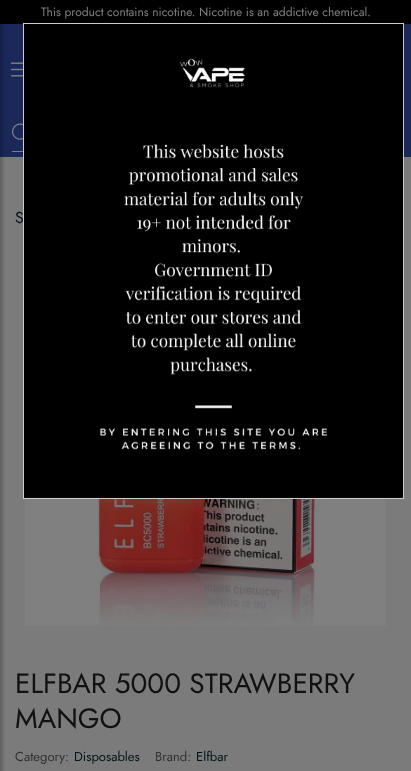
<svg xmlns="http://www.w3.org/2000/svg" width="411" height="771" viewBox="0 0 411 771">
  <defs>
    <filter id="blur1" x="-50%" y="-200%" width="200%" height="500%"><feGaussianBlur stdDeviation="1.5"/></filter>
  </defs>
  <rect width="100%" height="100%" fill="#7b7b7b"/>
  <rect x="0" y="24" width="411" height="133" fill="#1a285a"/>
  <rect x="0" y="0" width="411" height="24" fill="#000000"/>
  <rect x="-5" y="3" width="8" height="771" fill="#000000" fill-opacity="0.2" filter="url(#blur1)"/>
  <image x="11" y="62" width="12" height="15" href="img1.png"/>
  <image x="12" y="123" width="11" height="17" href="img2.png"/>
  <rect x="12" y="151" width="11" height="1" fill="#808080"/>
  <text x="41" y="16" font-family="Jost" font-size="12" fill="#808080">This product contains nicotine. Nicotine is an addictive chemical.</text>
  <text x="15" y="223" font-family="Jost" font-size="16" fill="#021217">S</text>
  <image x="25" y="497" width="361" height="129" href="img4.png"/>
  <rect x="23.5" y="23.5" width="380" height="475" fill="none" stroke="#cccccc"/>
  <image x="24" y="24" width="379" height="474" href="img3.png"/>
  <text x="15" y="693" font-family="Jost" font-size="28" fill="#111111">ELFBAR 5000 STRAWBERRY</text>
  <text x="15" y="728" font-family="Jost" font-size="28" fill="#111111">MANGO</text>
  <text x="15" y="761" font-family="Jost" font-size="13" fill="#313131">Category:</text>
  <text x="74" y="761" font-family="Jost" font-size="13" fill="#021217">Disposables</text>
  <text x="155" y="761" font-family="Jost" font-size="13" fill="#313131">Brand:</text>
  <text x="196" y="761" font-family="Jost" font-size="13" fill="#021217">Elfbar</text>
</svg>
